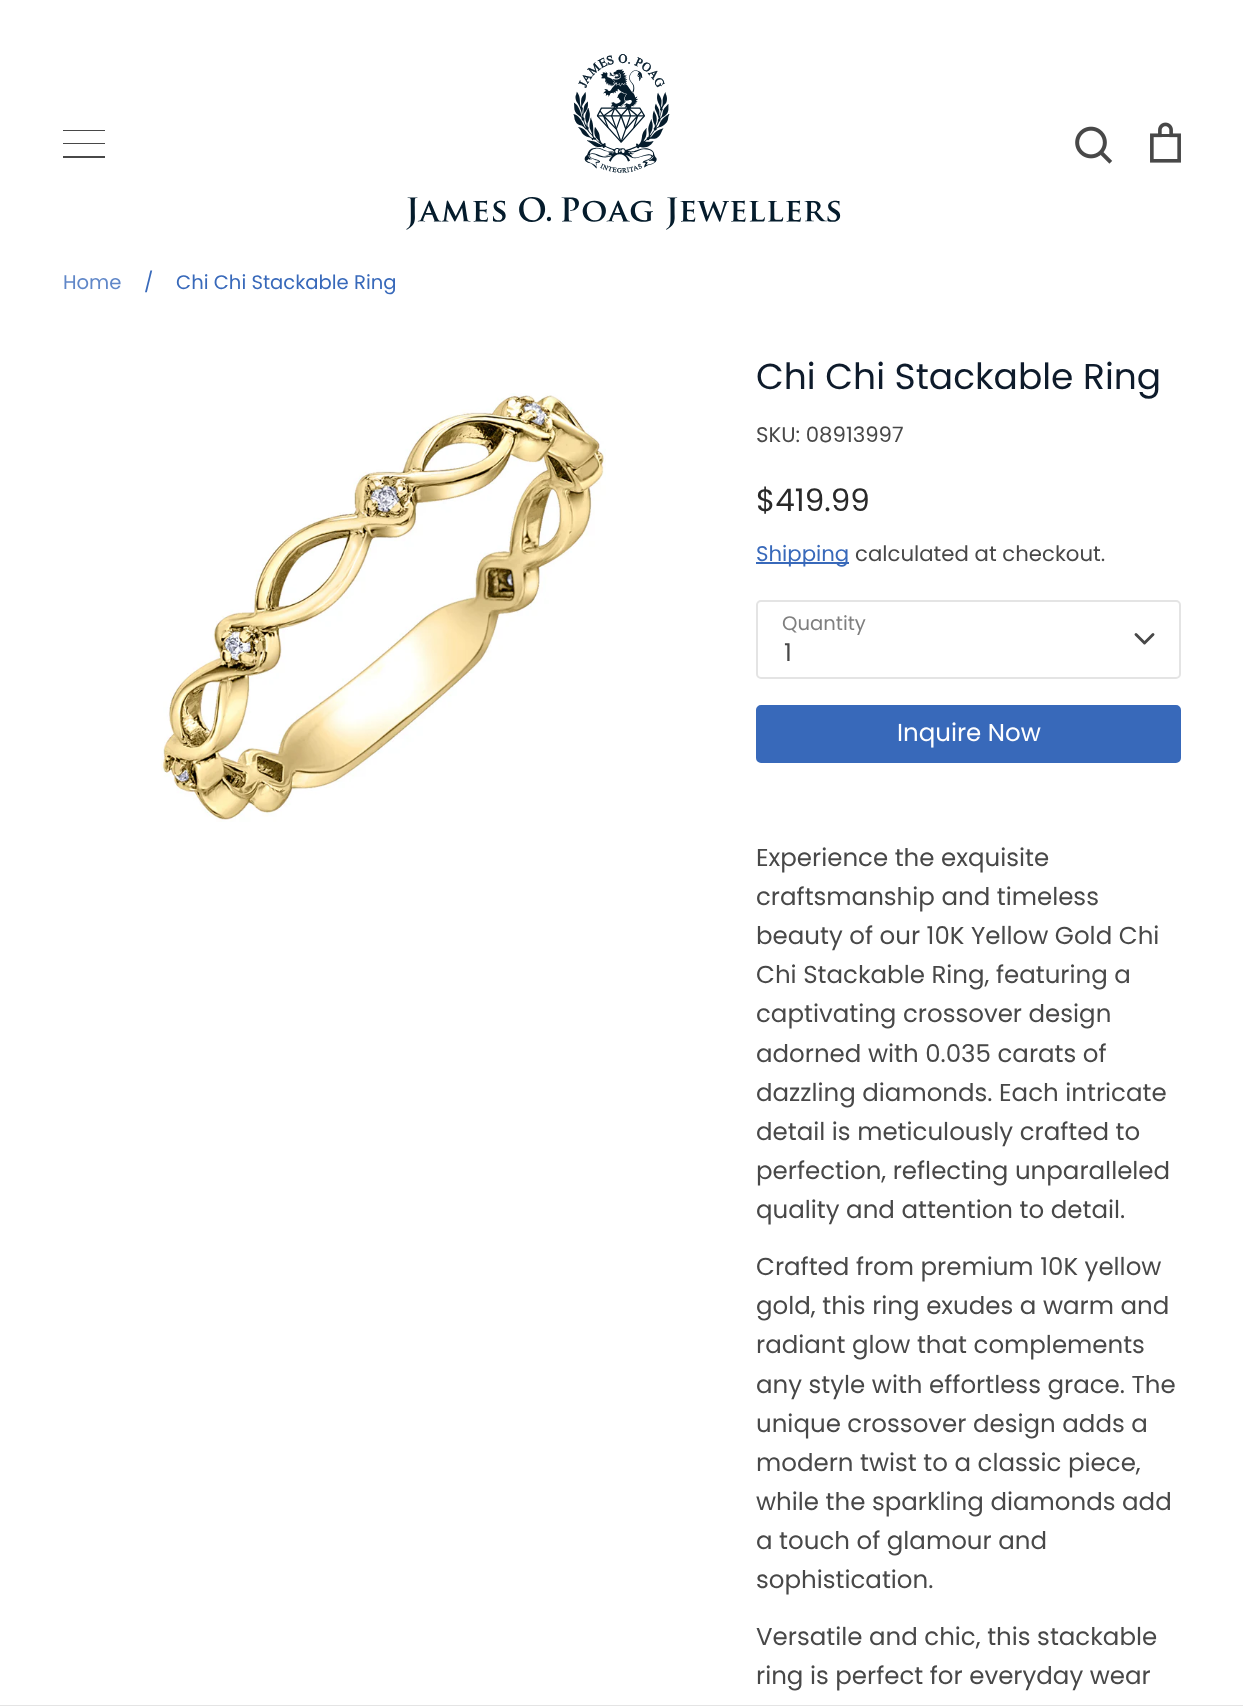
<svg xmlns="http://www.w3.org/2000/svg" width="1243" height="1706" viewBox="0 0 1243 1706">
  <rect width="100%" height="100%" fill="#ffffff"/>
  <rect x="63" y="130" width="42" height="1" fill="#484848"/>
  <rect x="63" y="143" width="42" height="1" fill="#484848"/>
  <rect x="63" y="156" width="42" height="2" fill="#484848"/>
  <image x="406" y="54" width="435" height="176" href="img1.png"/>
  <image x="1075" y="126" width="38" height="38" href="img2.png"/>
  <image x="1150" y="122" width="31" height="41" href="img3.png"/>
  <rect x="0" y="1705" width="1243" height="1" fill="#484848" fill-opacity="0.15"/>
  <text x="63" y="289" font-family="Poppins" font-size="19.6" fill="#6087c8">Home</text>
  <text x="144" y="289" font-family="Poppins" font-size="19.6" fill="#3869ba">/</text>
  <text x="176" y="289" font-family="Poppins" font-size="19.6" fill="#3869ba">Chi Chi Stackable Ring</text>
  <image x="161" y="393" width="445" height="429" href="img4.png"/>
  <text x="756" y="389" font-family="Poppins" font-size="36" fill="#0e1b2b">Chi Chi Stackable Ring</text>
  <text x="756" y="442" font-family="Poppins" font-size="21.25" fill="#484848">SKU: 08913997</text>
  <text x="756" y="511" font-family="Poppins" font-size="31" fill="#292929">$419.99</text>
  <rect x="756" y="562" width="93" height="2" fill="#3869ba"/>
  <text x="756" y="561" font-family="Poppins" font-size="21.25" fill="#3869ba">Shipping</text>
  <text x="855" y="561" font-family="Poppins" font-size="21.25" fill="#484848">calculated at checkout.</text>
  <text x="782" y="630" font-family="Poppins" font-size="19.6" fill="#7f7f7f">Quantity</text>
  <rect x="757" y="601" width="423" height="77" rx="4" fill="none" stroke="#e4e4e4" stroke-width="2"/>
  <path d="M1136 634.5L1144.5 643L1153 634.5" fill="none" stroke="#484848" stroke-width="2.9" stroke-linecap="round" stroke-linejoin="round"/>
  <text x="784" y="661" font-family="Poppins" font-size="24.5" fill="#484848">1</text>
  <rect x="757" y="706" width="423" height="56" rx="4" fill="#3869ba" stroke="#3869ba" stroke-width="2"/>
  <text x="897" y="741" font-family="Poppins" font-size="24.5" fill="#ffffff">Inquire Now</text>
  <text x="756" y="866" font-family="Poppins" font-size="24.5" fill="#484848">Experience the exquisite</text>
  <text x="756" y="905" font-family="Poppins" font-size="24.5" fill="#484848">craftsmanship and timeless</text>
  <text x="756" y="944" font-family="Poppins" font-size="24.5" fill="#484848">beauty of our 10K Yellow Gold Chi</text>
  <text x="756" y="983" font-family="Poppins" font-size="24.5" fill="#484848">Chi Stackable Ring, featuring a</text>
  <text x="756" y="1022" font-family="Poppins" font-size="24.5" fill="#484848">captivating crossover design</text>
  <text x="756" y="1062" font-family="Poppins" font-size="24.5" fill="#484848">adorned with 0.035 carats of</text>
  <text x="756" y="1101" font-family="Poppins" font-size="24.5" fill="#484848">dazzling diamonds. Each intricate</text>
  <text x="756" y="1140" font-family="Poppins" font-size="24.5" fill="#484848">detail is meticulously crafted to</text>
  <text x="756" y="1179" font-family="Poppins" font-size="24.5" fill="#484848">perfection, reflecting unparalleled</text>
  <text x="756" y="1218" font-family="Poppins" font-size="24.5" fill="#484848">quality and attention to detail.</text>
  <text x="756" y="1275" font-family="Poppins" font-size="24.5" fill="#484848">Crafted from premium 10K yellow</text>
  <text x="756" y="1314" font-family="Poppins" font-size="24.5" fill="#484848">gold, this ring exudes a warm and</text>
  <text x="756" y="1353" font-family="Poppins" font-size="24.5" fill="#484848">radiant glow that complements</text>
  <text x="756" y="1393" font-family="Poppins" font-size="24.5" fill="#484848">any style with effortless grace. The</text>
  <text x="756" y="1432" font-family="Poppins" font-size="24.5" fill="#484848">unique crossover design adds a</text>
  <text x="756" y="1471" font-family="Poppins" font-size="24.5" fill="#484848">modern twist to a classic piece,</text>
  <text x="756" y="1510" font-family="Poppins" font-size="24.5" fill="#484848">while the sparkling diamonds add</text>
  <text x="756" y="1549" font-family="Poppins" font-size="24.5" fill="#484848">a touch of glamour and</text>
  <text x="756" y="1588" font-family="Poppins" font-size="24.5" fill="#484848">sophistication.</text>
  <text x="756" y="1645" font-family="Poppins" font-size="24.5" fill="#484848">Versatile and chic, this stackable</text>
  <text x="756" y="1684" font-family="Poppins" font-size="24.5" fill="#484848">ring is perfect for everyday wear</text>
</svg>
